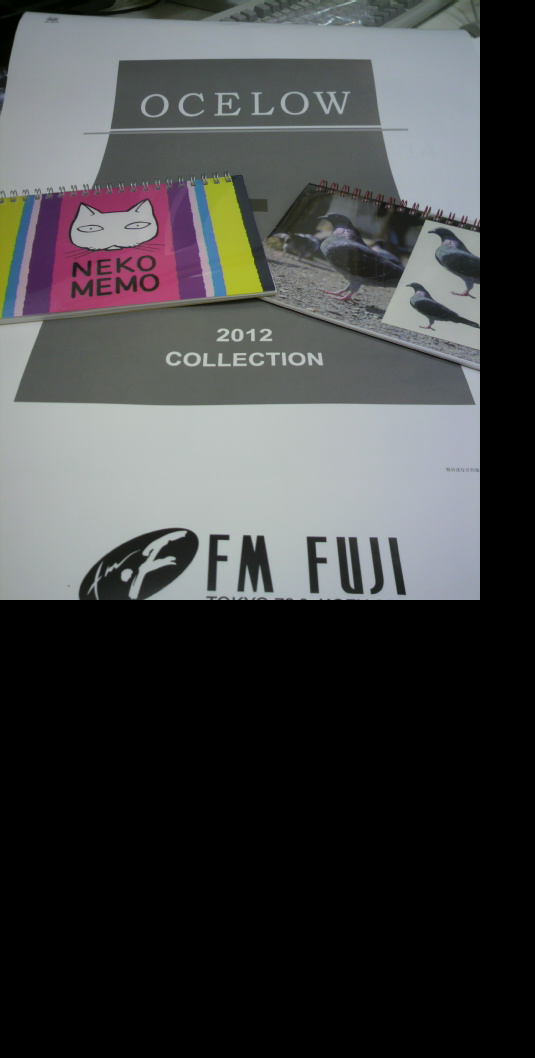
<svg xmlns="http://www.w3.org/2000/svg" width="535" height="1058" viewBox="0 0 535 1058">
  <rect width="100%" height="100%" fill="#000000"/>
  <image x="0" y="0" width="480" height="600" href="img1.png"/>
</svg>
